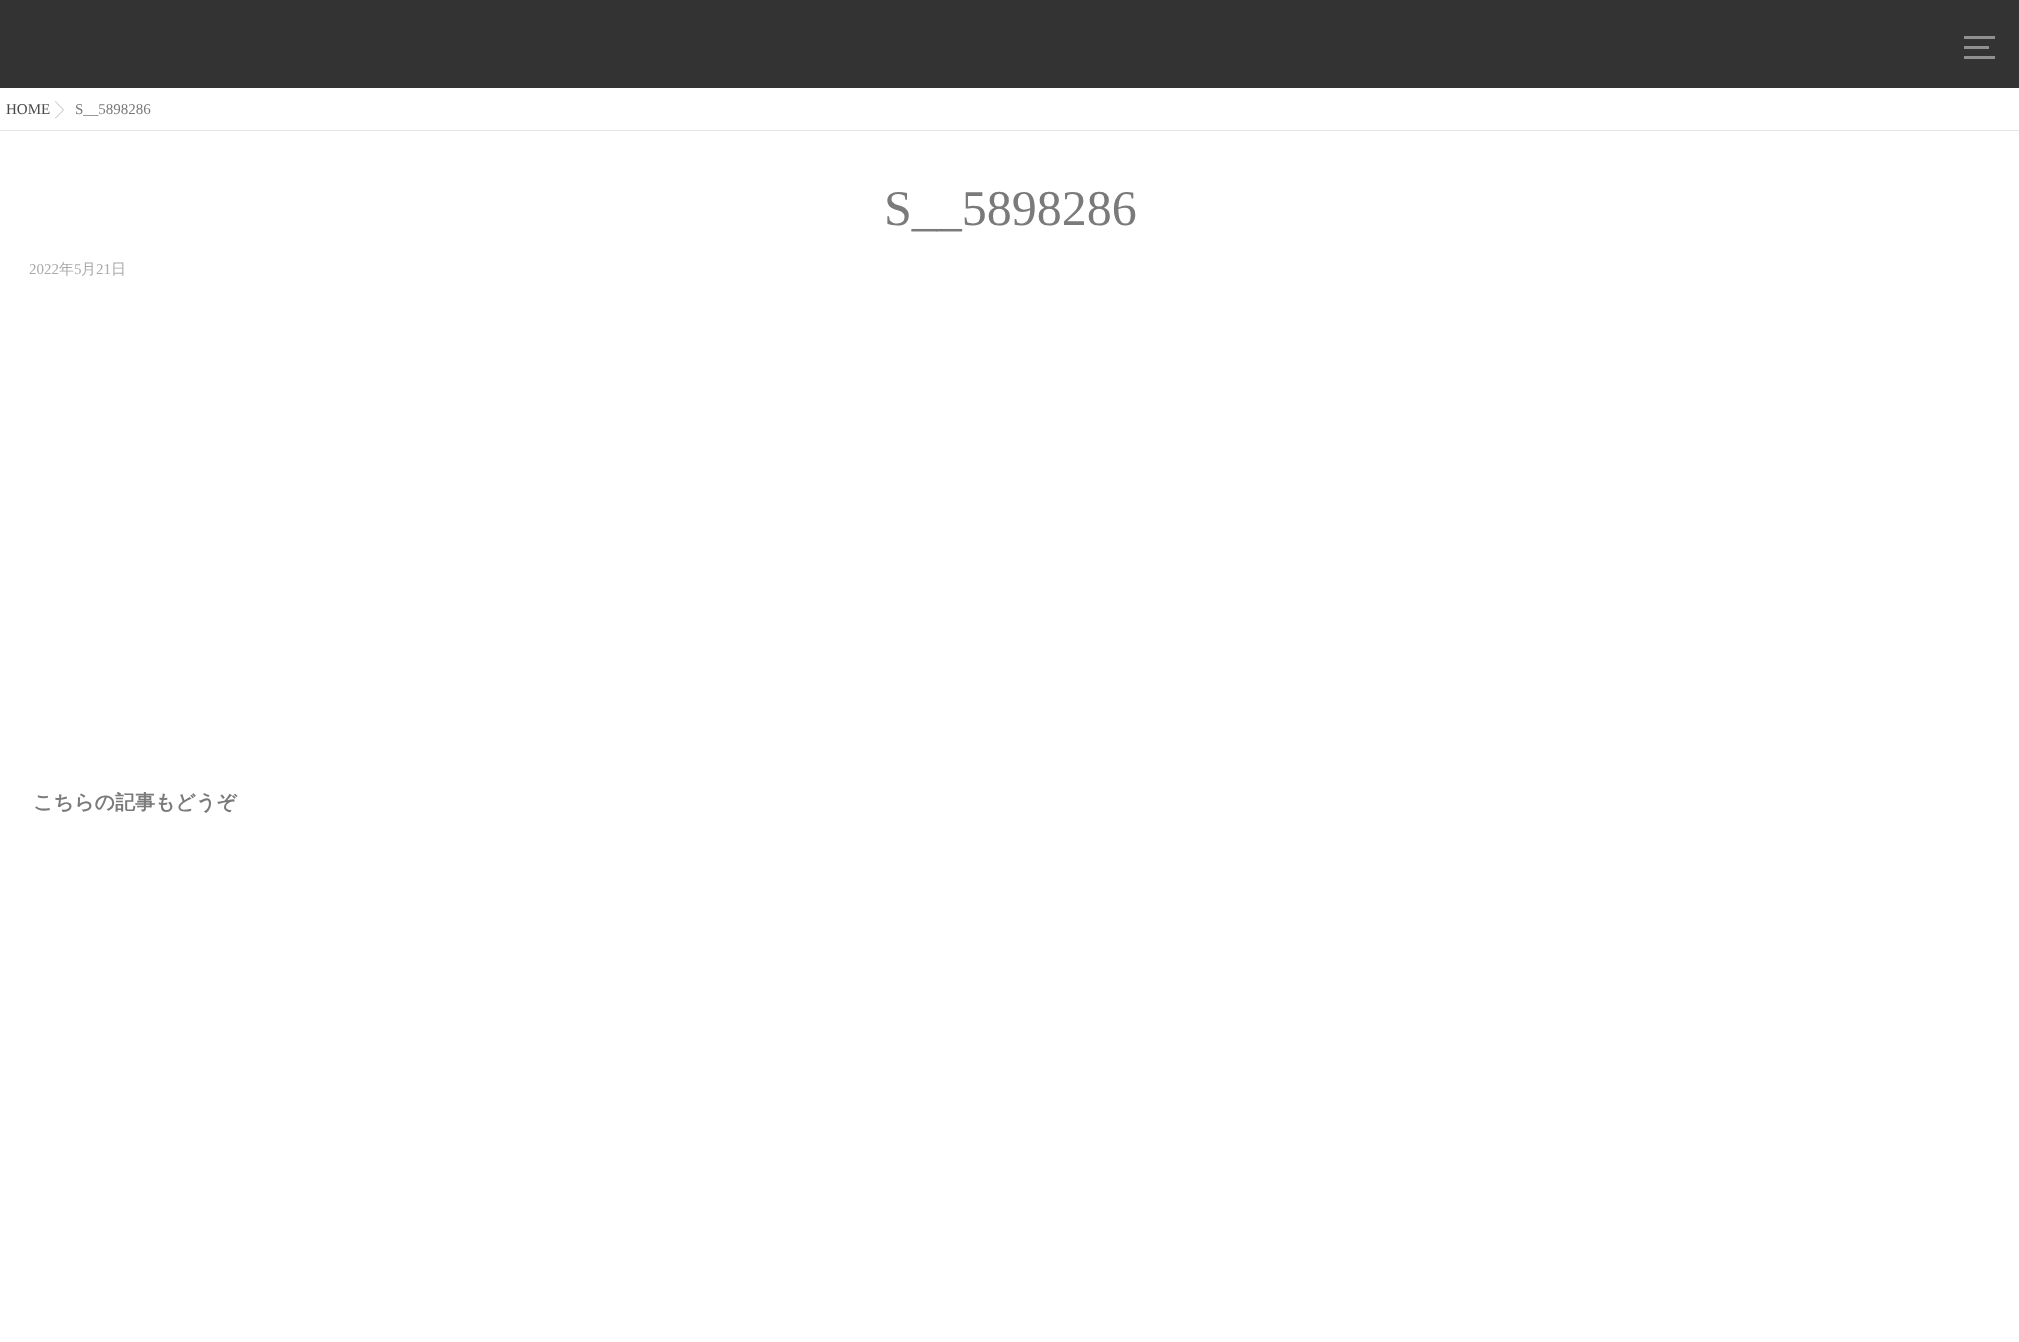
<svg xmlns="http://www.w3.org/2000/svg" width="2019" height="1342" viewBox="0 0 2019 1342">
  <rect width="100%" height="100%" fill="#ffffff"/>
  <rect x="0" y="0" width="2019" height="88" fill="#333333"/>
  <rect x="1964" y="36" width="31" height="3" fill="#909090"/>
  <rect x="1964" y="46" width="25" height="3" fill="#909090"/>
  <rect x="1964" y="56" width="31" height="3" fill="#909090"/>
  <rect x="0" y="130" width="2019" height="1" fill="#e5e5e5"/>
  <text x="6" y="114" font-family="Liberation Serif" font-size="15" fill="#474747">HOME</text>
  <path d="M55 101.5L63 110L55 118L55.5 118.5L64 110L55.5 101Z" fill="#bcbcbc"/>
  <text x="75" y="114" font-family="Liberation Serif" font-size="15" fill="#7a7a7a">S__5898286</text>
  <text x="884" y="225" font-family="Liberation Serif" font-size="50" fill="#7a7a7a">S__5898286</text>
  <text x="29" y="274" font-family="Liberation Serif" font-size="15" fill="#aaaaaa">2022</text>
  <text x="59" y="274" font-family="WenQuanYi Zen Hei" font-size="15" font-weight="500" fill="#aaaaaa">年</text>
  <text x="74" y="274" font-family="Liberation Serif" font-size="15" fill="#aaaaaa">5</text>
  <text x="81" y="274" font-family="WenQuanYi Zen Hei" font-size="15" font-weight="500" fill="#aaaaaa">月</text>
  <text x="96" y="274" font-family="Liberation Serif" font-size="15" fill="#aaaaaa">21</text>
  <text x="111" y="274" font-family="WenQuanYi Zen Hei" font-size="15" font-weight="500" fill="#aaaaaa">日</text>
  <text x="33" y="809" font-family="WenQuanYi Zen Hei" font-size="20" font-weight="bold" fill="#7a7a7a">こちらの記事もどうぞ</text>
</svg>
